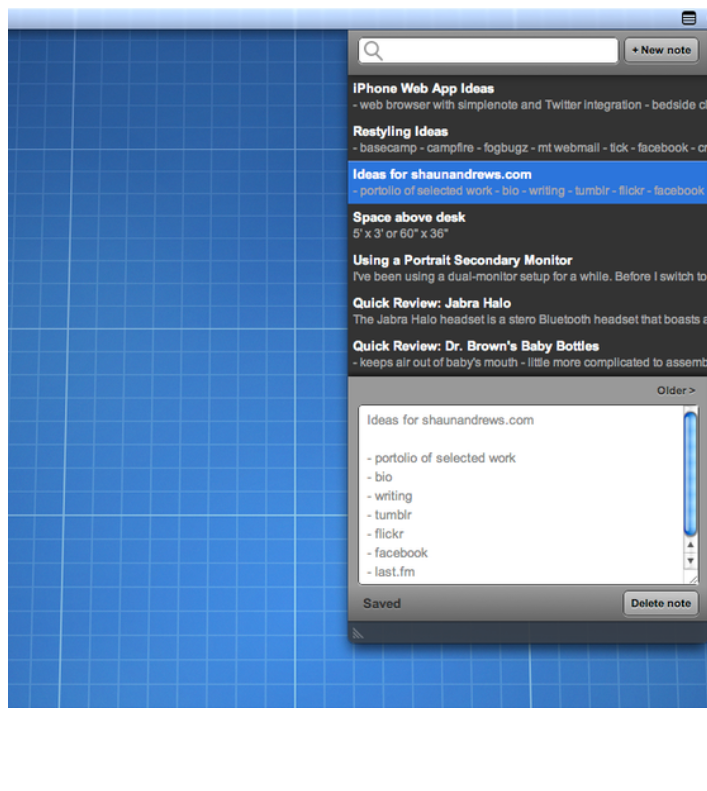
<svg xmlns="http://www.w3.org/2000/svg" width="707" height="791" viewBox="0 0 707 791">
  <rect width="100%" height="100%" fill="#ffffff"/>
  <image x="8" y="8" width="699" height="700" href="img1.png"/>
</svg>
